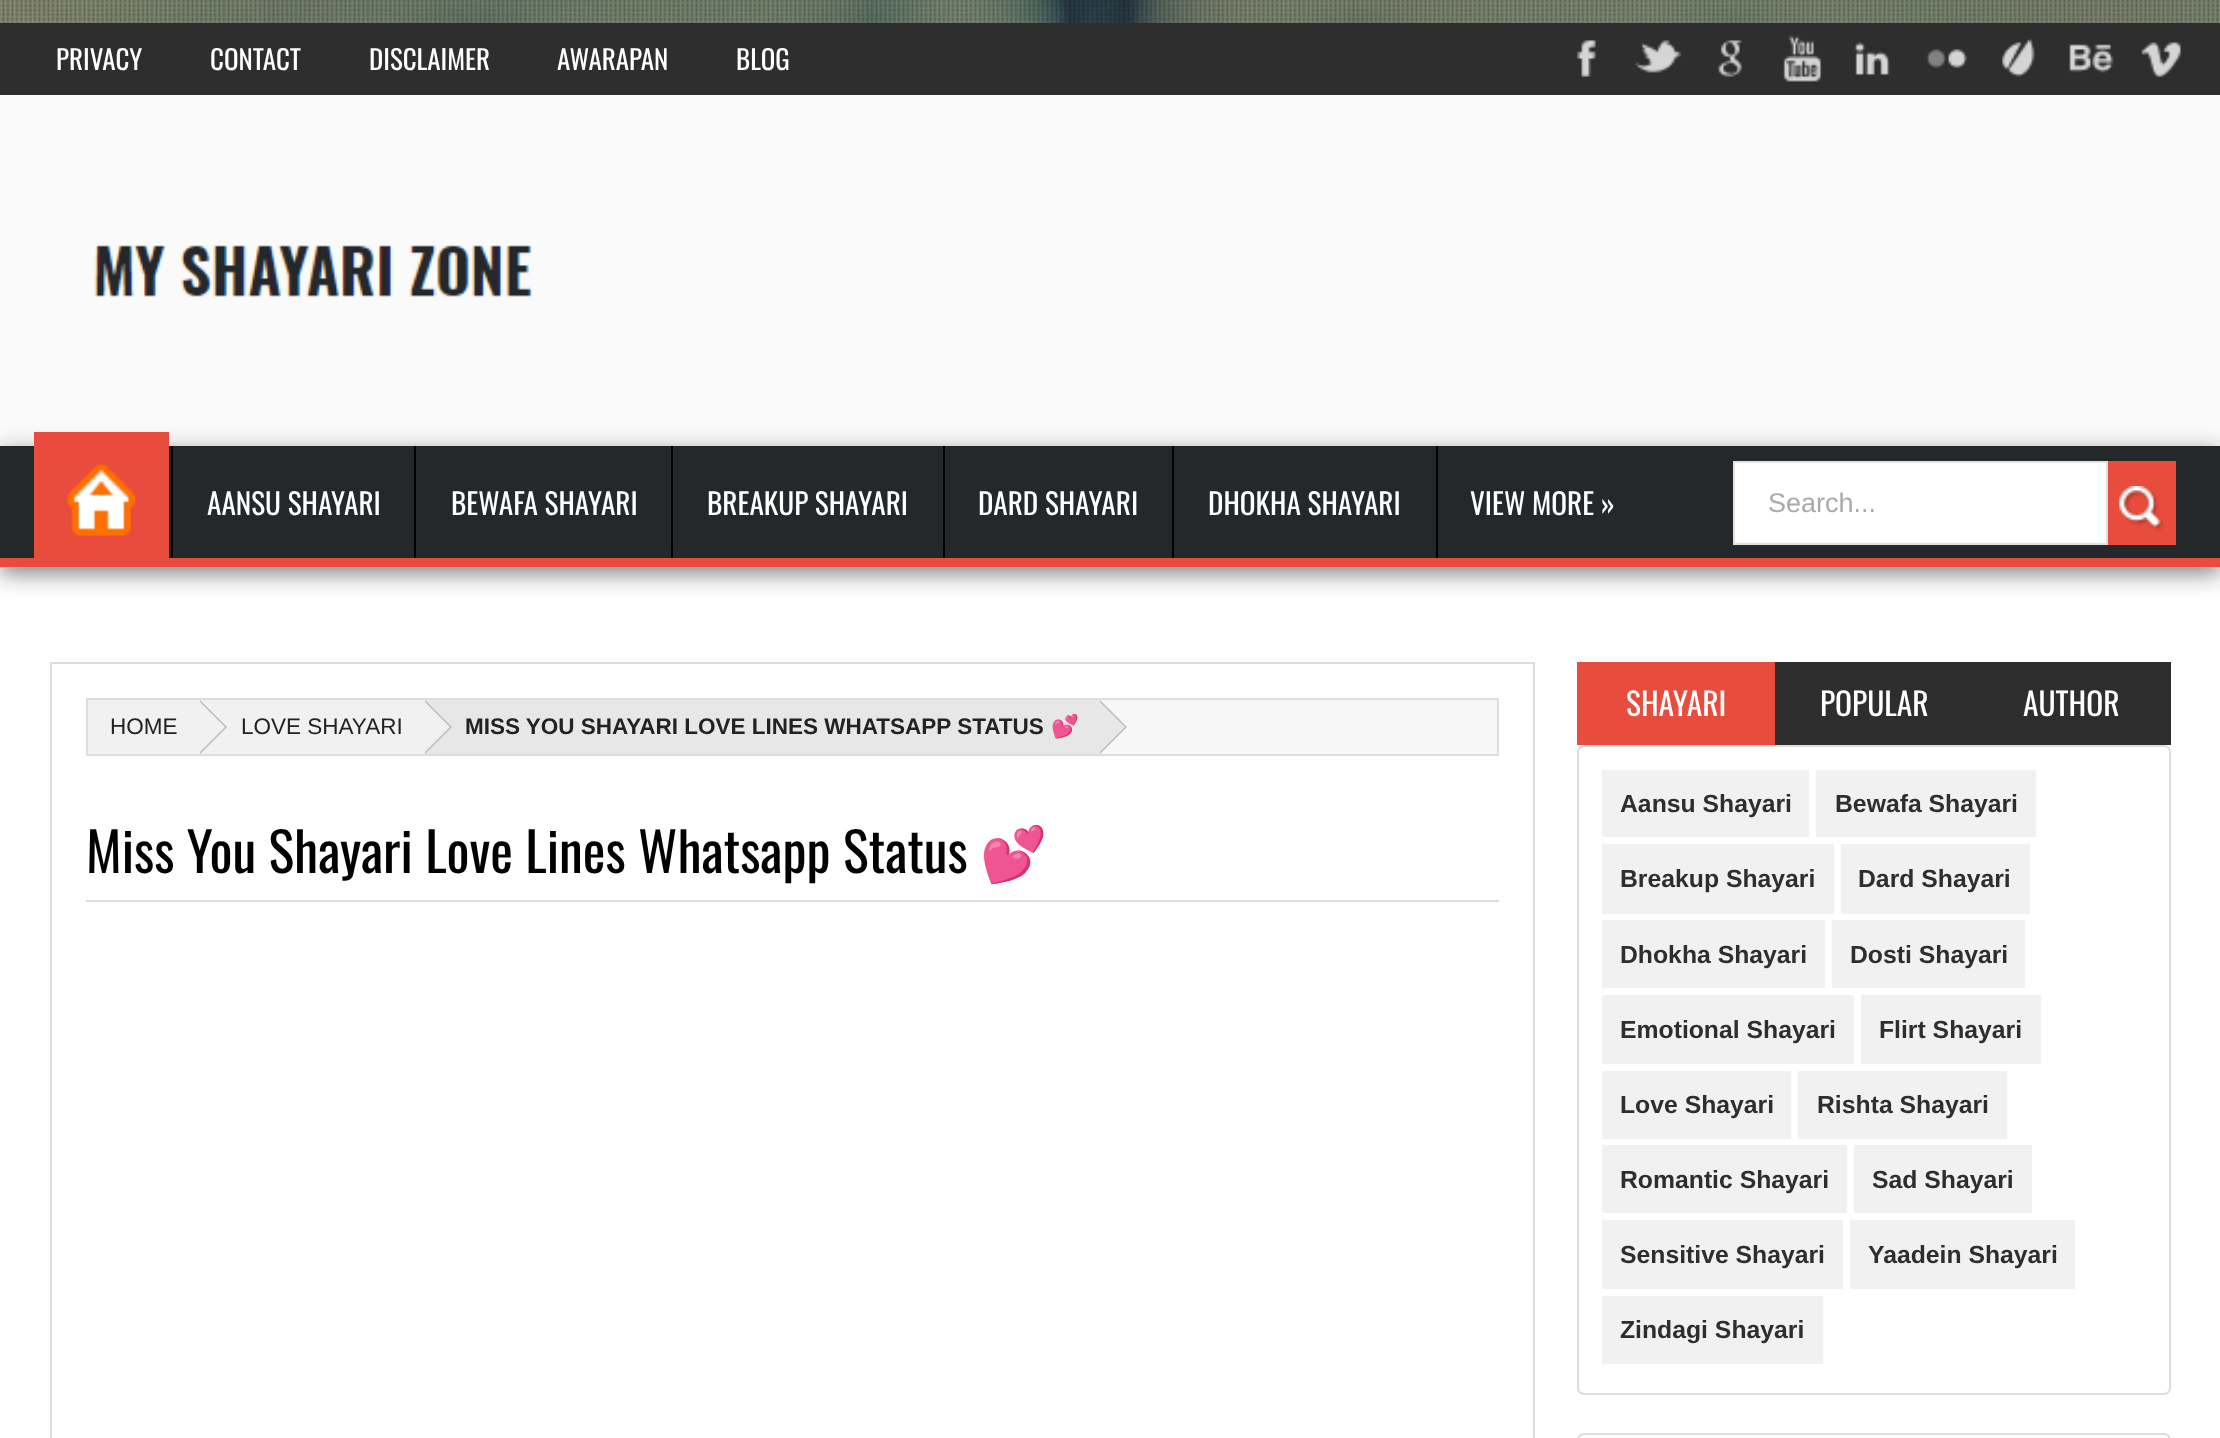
<svg xmlns="http://www.w3.org/2000/svg" width="2220" height="1438" viewBox="0 0 2220 1438">
  <defs>
    <filter id="blur1" x="-50%" y="-200%" width="200%" height="500%"><feGaussianBlur stdDeviation="11"/></filter>
  </defs>
  <rect width="100%" height="100%" fill="#ffffff"/>
  <image x="0" y="0" width="2220" height="23" href="img1.png"/>
  <image x="0" y="0" width="2219" height="23" href="img2.png"/>
  <rect x="0" y="95" width="2220" height="351" fill="#fafafa"/>
  <rect x="0" y="23" width="2220" height="72" fill="#2e2e2e"/>
  <text x="56" y="70" font-family="Oswald" font-size="27" fill="#ffffff">PRIVACY</text>
  <text x="210" y="70" font-family="Oswald" font-size="27" fill="#ffffff">CONTACT</text>
  <text x="369" y="70" font-family="Oswald" font-size="27" fill="#ffffff">DISCLAIMER</text>
  <text x="557" y="70" font-family="Oswald" font-size="27" fill="#ffffff">AWARAPAN</text>
  <text x="736" y="70" font-family="Oswald" font-size="27" fill="#ffffff">BLOG</text>
  <image x="1576" y="40" width="20" height="38" href="img3.png"/>
  <image x="1635" y="40" width="47" height="33" href="img4.png"/>
  <image x="1718" y="40" width="25" height="38" href="img5.png"/>
  <image x="1783" y="35" width="39" height="47" href="img6.png"/>
  <image x="1854" y="42" width="37" height="33" href="img7.png"/>
  <image x="1926" y="49" width="41" height="20" href="img8.png"/>
  <image x="2002" y="38" width="33" height="39" href="img9.png"/>
  <image x="2069" y="44" width="45" height="29" href="img10.png"/>
  <image x="2141" y="42" width="41" height="36" href="img11.png"/>
  <image x="94" y="245" width="439" height="52" href="img12.png"/>
  <rect x="0" y="452" width="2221" height="122" fill="#323232" fill-opacity="0.6" filter="url(#blur1)"/>
  <rect x="0" y="446" width="2220" height="112" fill="#25282a"/>
  <rect x="0" y="558" width="2220" height="9" fill="#e84c3d"/>
  <rect x="34" y="432" width="135" height="126" fill="#e84c3d"/>
  <image x="67" y="463" width="69" height="73" href="img13.png"/>
  <rect x="171" y="446" width="2" height="112" fill="#000000"/>
  <text x="207" y="515" font-family="Oswald" font-size="29.25" fill="#ffffff">AANSU SHAYARI</text>
  <rect x="414" y="446" width="2" height="112" fill="#000000"/>
  <text x="451" y="515" font-family="Oswald" font-size="29.25" fill="#ffffff">BEWAFA SHAYARI</text>
  <rect x="671" y="446" width="2" height="112" fill="#000000"/>
  <text x="707" y="515" font-family="Oswald" font-size="29.25" fill="#ffffff">BREAKUP SHAYARI</text>
  <rect x="943" y="446" width="2" height="112" fill="#000000"/>
  <text x="978" y="515" font-family="Oswald" font-size="29.25" fill="#ffffff">DARD SHAYARI</text>
  <rect x="1172" y="446" width="2" height="112" fill="#000000"/>
  <text x="1208" y="515" font-family="Oswald" font-size="29.25" fill="#ffffff">DHOKHA SHAYARI</text>
  <rect x="1436" y="446" width="2" height="112" fill="#000000"/>
  <text x="1470" y="515" font-family="Oswald" font-size="29.25" fill="#ffffff">VIEW MORE »</text>
  <rect x="1734" y="462" width="373" height="82" fill="#ffffff" stroke="#e1e1e1" stroke-width="2"/>
  <text x="1768" y="512" font-family="Liberation Sans" font-size="27" fill="#aaaaaa">Search...</text>
  <rect x="2108" y="461" width="68" height="84" fill="#e74c3c"/>
  <image x="2119" y="486" width="45" height="45" href="img14.png"/>
  <rect x="51" y="663" width="1483" height="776" fill="none" stroke="#dddddd" stroke-width="2"/>
  <rect x="1100" y="700" width="397" height="54" fill="#f7f7f7"/>
  <rect x="87" y="699" width="1411" height="56" fill="none" stroke="#dddddd" stroke-width="2"/>
  <rect x="88" y="700" width="337" height="54" fill="#f1f1f1"/>
  <text x="110" y="734" font-family="Liberation Sans" font-size="22.5" fill="#222222">HOME</text>
  <path d="M200 754V700L227 727Z" fill="#bbbbbb"/>
  <path d="M198 754V700L225 727Z" fill="#f1f1f1"/>
  <text x="241" y="734" font-family="Liberation Sans" font-size="22.5" fill="#222222">LOVE SHAYARI</text>
  <rect x="425" y="700" width="675" height="54" fill="#e7e7e7"/>
  <path d="M425 754V700L452 727Z" fill="#bbbbbb"/>
  <path d="M423 754V700L450 727Z" fill="#f1f1f1"/>
  <text x="465" y="734" font-family="Liberation Sans" font-size="22.5" font-weight="bold" fill="#222222">MISS YOU SHAYARI LOVE LINES WHATSAPP STATUS</text>
  <text x="1051" y="734" font-family="Noto Color Emoji" font-size="22.5" font-weight="bold" fill="#222222">💕</text>
  <path d="M1100 754V700L1127 727Z" fill="#bbbbbb"/>
  <path d="M1098 754V700L1125 727Z" fill="#e7e7e7"/>
  <rect x="86" y="900" width="1413" height="2" fill="#dddddd"/>
  <text x="86" y="873" font-family="Oswald" font-size="54" fill="#000000">Miss You Shayari Love Lines Whatsapp Status</text>
  <text x="980" y="873" font-family="Noto Color Emoji" font-size="54" fill="#000000">💕</text>
  <rect x="1577" y="662" width="198" height="83" fill="#e74c3c"/>
  <text x="1626" y="716" font-family="Oswald" font-size="31.5" fill="#ffffff">SHAYARI</text>
  <rect x="1775" y="662" width="396" height="83" fill="#2e2e2e"/>
  <text x="1820" y="716" font-family="Oswald" font-size="31.5" fill="#ffffff">POPULAR</text>
  <text x="2023" y="716" font-family="Oswald" font-size="31.5" fill="#ffffff">AUTHOR</text>
  <rect x="1578" y="746" width="592" height="648" rx="6" fill="none" stroke="#dddddd" stroke-width="2"/>
  <rect x="1602" y="770" width="207" height="67" fill="#f1f1f1"/>
  <text x="1620" y="812" font-family="Liberation Sans" font-size="24.75" font-weight="bold" fill="#2e2e2e">Aansu Shayari</text>
  <rect x="1816" y="770" width="220" height="67" fill="#f1f1f1"/>
  <text x="1835" y="812" font-family="Liberation Sans" font-size="24.75" font-weight="bold" fill="#2e2e2e">Bewafa Shayari</text>
  <rect x="1602" y="844" width="232" height="70" fill="#f1f1f1"/>
  <text x="1620" y="887" font-family="Liberation Sans" font-size="24.75" font-weight="bold" fill="#2e2e2e">Breakup Shayari</text>
  <rect x="1841" y="844" width="189" height="70" fill="#f1f1f1"/>
  <text x="1858" y="887" font-family="Liberation Sans" font-size="24.75" font-weight="bold" fill="#2e2e2e">Dard Shayari</text>
  <rect x="1602" y="920" width="223" height="68" fill="#f1f1f1"/>
  <text x="1620" y="963" font-family="Liberation Sans" font-size="24.75" font-weight="bold" fill="#2e2e2e">Dhokha Shayari</text>
  <rect x="1832" y="920" width="193" height="68" fill="#f1f1f1"/>
  <text x="1850" y="963" font-family="Liberation Sans" font-size="24.75" font-weight="bold" fill="#2e2e2e">Dosti Shayari</text>
  <rect x="1602" y="995" width="252" height="69" fill="#f1f1f1"/>
  <text x="1620" y="1038" font-family="Liberation Sans" font-size="24.75" font-weight="bold" fill="#2e2e2e">Emotional Shayari</text>
  <rect x="1861" y="995" width="180" height="69" fill="#f1f1f1"/>
  <text x="1879" y="1038" font-family="Liberation Sans" font-size="24.75" font-weight="bold" fill="#2e2e2e">Flirt Shayari</text>
  <rect x="1602" y="1071" width="189" height="68" fill="#f1f1f1"/>
  <text x="1620" y="1113" font-family="Liberation Sans" font-size="24.75" font-weight="bold" fill="#2e2e2e">Love Shayari</text>
  <rect x="1798" y="1071" width="209" height="68" fill="#f1f1f1"/>
  <text x="1817" y="1113" font-family="Liberation Sans" font-size="24.75" font-weight="bold" fill="#2e2e2e">Rishta Shayari</text>
  <rect x="1602" y="1145" width="245" height="68" fill="#f1f1f1"/>
  <text x="1620" y="1188" font-family="Liberation Sans" font-size="24.75" font-weight="bold" fill="#2e2e2e">Romantic Shayari</text>
  <rect x="1854" y="1145" width="178" height="68" fill="#f1f1f1"/>
  <text x="1872" y="1188" font-family="Liberation Sans" font-size="24.75" font-weight="bold" fill="#2e2e2e">Sad Shayari</text>
  <rect x="1602" y="1220" width="241" height="69" fill="#f1f1f1"/>
  <text x="1620" y="1263" font-family="Liberation Sans" font-size="24.75" font-weight="bold" fill="#2e2e2e">Sensitive Shayari</text>
  <rect x="1850" y="1220" width="225" height="69" fill="#f1f1f1"/>
  <text x="1868" y="1263" font-family="Liberation Sans" font-size="24.75" font-weight="bold" fill="#2e2e2e">Yaadein Shayari</text>
  <rect x="1602" y="1296" width="221" height="68" fill="#f1f1f1"/>
  <text x="1620" y="1338" font-family="Liberation Sans" font-size="24.75" font-weight="bold" fill="#2e2e2e">Zindagi Shayari</text>
  <rect x="1578" y="1434" width="592" height="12" rx="6" fill="none" stroke="#dddddd" stroke-width="2"/>
</svg>
